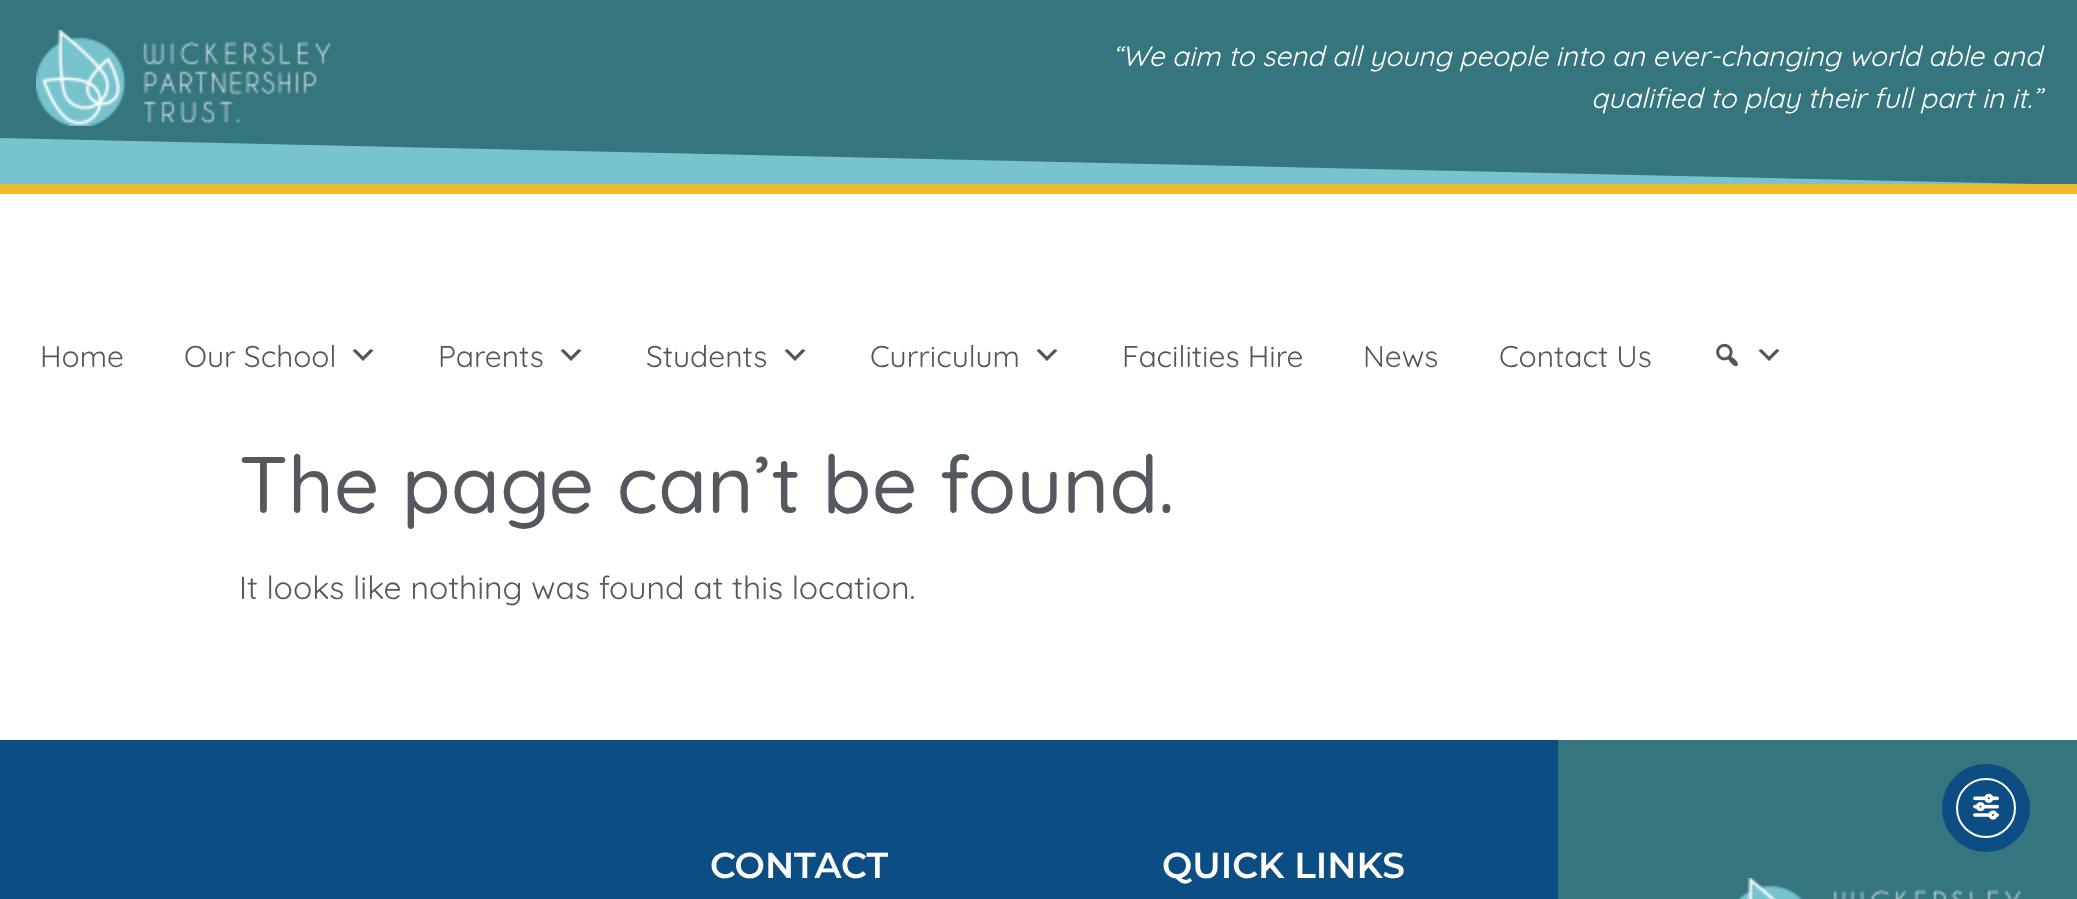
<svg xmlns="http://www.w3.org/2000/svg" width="2077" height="899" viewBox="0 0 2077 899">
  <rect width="100%" height="100%" fill="#ffffff"/>
  <rect x="0" y="0" width="2077" height="184" fill="#34757e"/>
  <image x="36" y="30" width="295" height="96" href="img1.png"/>
  <text x="1112" y="66" font-family="Quicksand" font-size="28" font-style="italic" fill="#ffffff">“We aim to send all young people into an ever-changing world able and</text>
  <text x="1591" y="108" font-family="Quicksand" font-size="28" font-style="italic" fill="#ffffff">qualified to play their full part in it.”</text>
  <path d="M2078 185V188H-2V138Z" fill="#78c4ce"/>
  <rect x="0" y="184" width="2077" height="10" fill="#efb927"/>
  <text x="40" y="367" font-family="Quicksand" font-size="30" fill="#555658">Home</text>
  <text x="184" y="367" font-family="Quicksand" font-size="30" fill="#555658">Our School</text>
  <path d="M355.5 349L363 356.5L370.5 349L373.5 350.5L363 361L352.5 350.5Z" fill="#555658"/>
  <text x="438" y="367" font-family="Quicksand" font-size="30" fill="#555658">Parents</text>
  <path d="M563.5 349L571 356.5L578.5 349L581.5 350.5L571 361L560.5 350.5Z" fill="#555658"/>
  <text x="646" y="367" font-family="Quicksand" font-size="30" fill="#555658">Students</text>
  <path d="M787.5 349L795 356.5L802.5 349L805.5 350.5L795 361L784.5 350.5Z" fill="#555658"/>
  <text x="870" y="367" font-family="Quicksand" font-size="30" fill="#555658">Curriculum</text>
  <path d="M1039.5 349L1047 356.5L1054.5 349L1057.5 350.5L1047 361L1036.5 350.5Z" fill="#555658"/>
  <text x="1122" y="367" font-family="Quicksand" font-size="30" fill="#555658">Facilities Hire</text>
  <text x="1363" y="367" font-family="Quicksand" font-size="30" fill="#555658">News</text>
  <text x="1499" y="367" font-family="Quicksand" font-size="30" fill="#555658">Contact Us</text>
  <image x="1716" y="343" width="22" height="24" href="img2.png"/>
  <path d="M1761.5 349L1769 356.5L1776.5 349L1779.5 350.5L1769 361L1758.5 350.5Z" fill="#555658"/>
  <text x="239" y="513" font-family="Quicksand" font-size="80" font-weight="500" fill="#54595f">The page can’t be found.</text>
  <text x="239" y="599" font-family="Quicksand" font-size="32" fill="#54595f">It looks like nothing was found at this location.</text>
  <rect x="1558" y="740" width="519" height="159" fill="#34757e"/>
  <circle cx="1986" cy="808" r="44" fill="#0c4d84"/>
  <circle cx="1986" cy="808" r="29" fill="none" stroke="#ffffff" stroke-width="2"/>
  <image x="1973" y="793" width="26" height="27" href="img3.png"/>
  <rect x="0" y="740" width="1558" height="159" fill="#0c4d84"/>
  <text x="710" y="878" font-family="Montserrat" font-size="36" font-weight="600" fill="#ffffff">CONTACT</text>
  <text x="1162" y="878" font-family="Montserrat" font-size="36" font-weight="600" fill="#ffffff">QUICK LINKS</text>
  <image x="1737" y="878" width="284" height="21" href="img4.png"/>
</svg>
